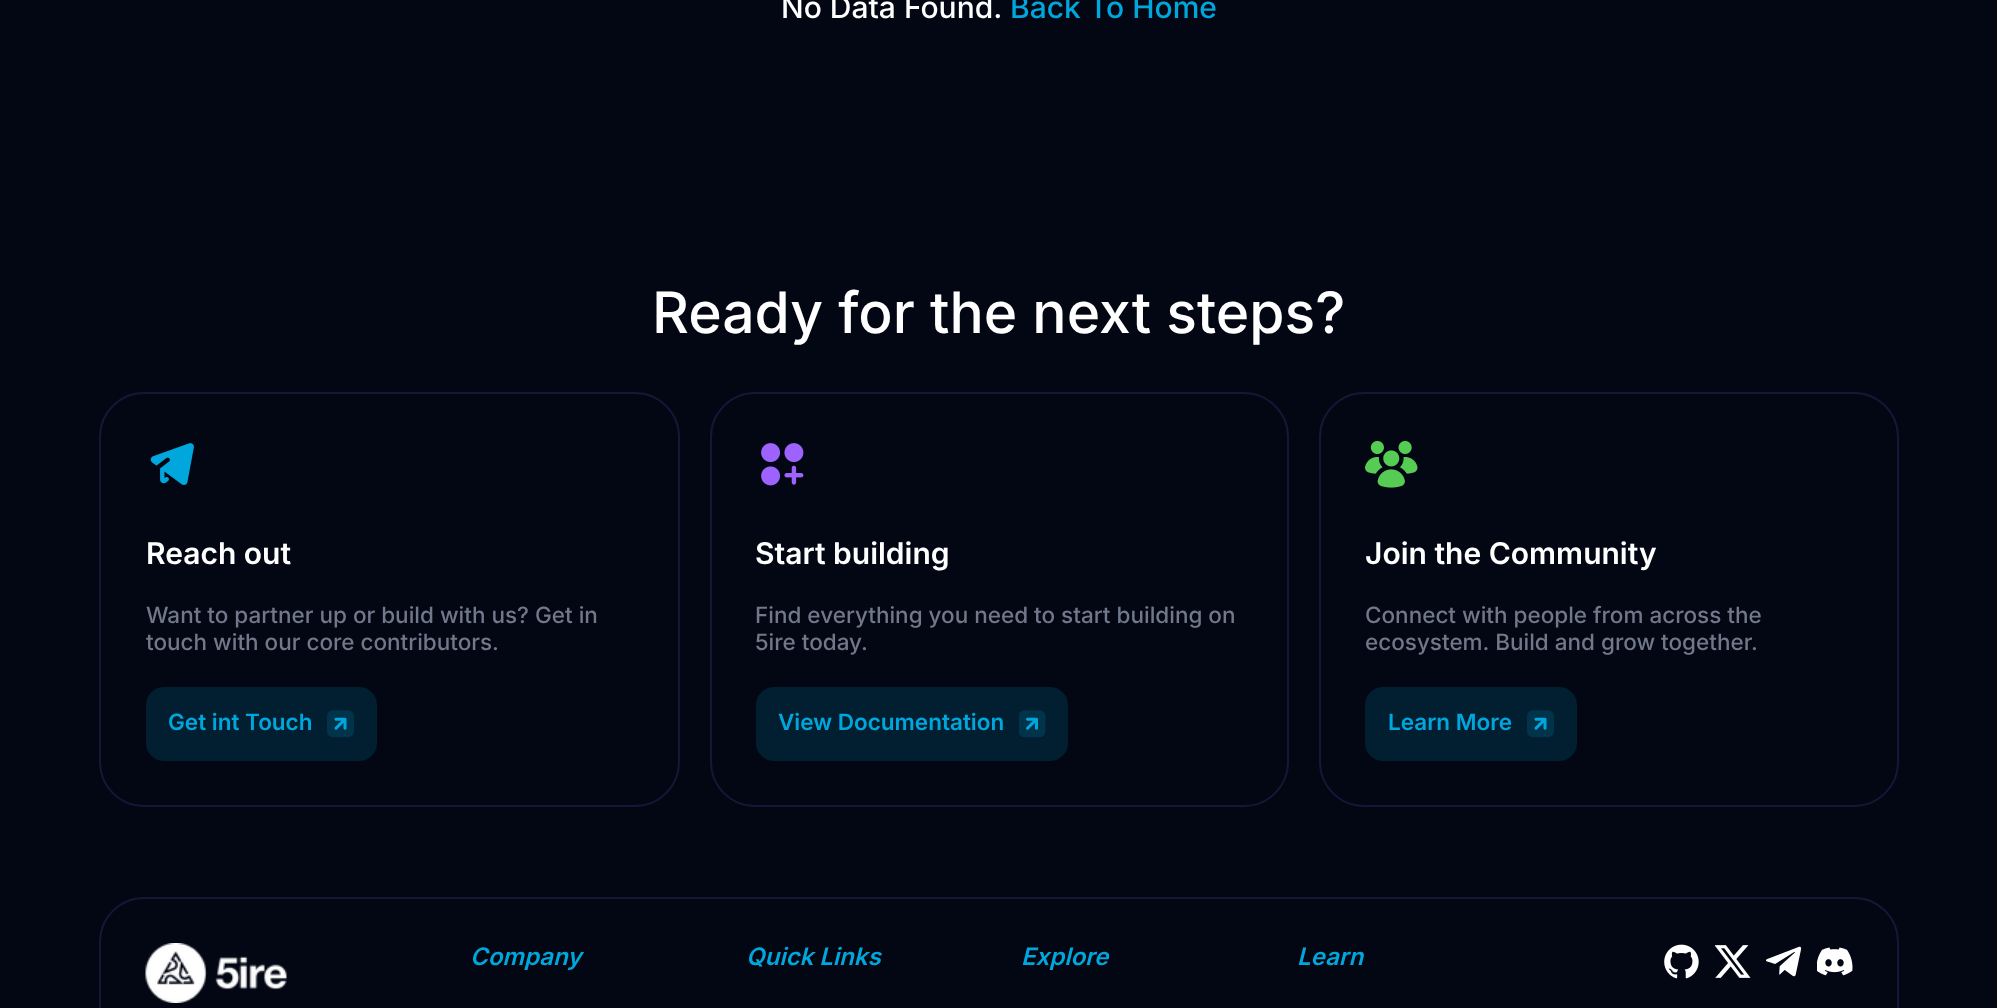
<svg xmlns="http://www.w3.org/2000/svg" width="1997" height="1008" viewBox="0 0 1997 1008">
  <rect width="100%" height="100%" fill="#020713"/>
  <text x="781" y="18" font-family="Inter" font-size="30" font-weight="500" fill="#ffffff">No Data Found.</text>
  <text x="1010" y="18" font-family="Inter" font-size="30" font-weight="500" fill="#00a7dc">Back To Home</text>
  <text x="652" y="333" font-family="Inter" font-size="57" font-weight="500" fill="#ffffff">Ready for the next steps?</text>
  <rect x="100" y="393" width="579" height="413" rx="44" fill="none" stroke="#191536" stroke-width="2"/>
  <image x="150" y="443" width="44" height="42" href="img1.png"/>
  <text x="146" y="564" font-family="Inter" font-size="30" font-weight="600" fill="#ffffff">Reach out</text>
  <text x="146" y="623" font-family="Inter" font-size="22.5" font-weight="500" fill="#707889">Want to partner up or build with us? Get in</text>
  <text x="146" y="650" font-family="Inter" font-size="22.5" font-weight="500" fill="#707889">touch with our core contributors.</text>
  <rect x="146" y="687" width="231" height="74" rx="18" fill="#021f31"/>
  <text x="168" y="730" font-family="Inter" font-size="22.5" font-weight="600" fill="#00a7dc">Get int Touch</text>
  <image x="327" y="710" width="27" height="28" href="img2.png"/>
  <rect x="711" y="393" width="577" height="413" rx="44" fill="none" stroke="#191536" stroke-width="2"/>
  <image x="761" y="443" width="43" height="43" href="img3.png"/>
  <text x="755" y="564" font-family="Inter" font-size="30" font-weight="600" fill="#ffffff">Start building</text>
  <text x="755" y="623" font-family="Inter" font-size="22.5" font-weight="500" fill="#707889">Find everything you need to start building on</text>
  <text x="755" y="650" font-family="Inter" font-size="22.5" font-weight="500" fill="#707889">5ire today.</text>
  <rect x="756" y="687" width="312" height="74" rx="18" fill="#021f31"/>
  <text x="778" y="730" font-family="Inter" font-size="22.5" font-weight="600" fill="#00a7dc">View Documentation</text>
  <image x="1019" y="710" width="27" height="28" href="img4.png"/>
  <rect x="1320" y="393" width="578" height="413" rx="44" fill="none" stroke="#191536" stroke-width="2"/>
  <image x="1365" y="440" width="53" height="48" href="img5.png"/>
  <text x="1365" y="564" font-family="Inter" font-size="30" font-weight="600" fill="#ffffff">Join the Community</text>
  <text x="1365" y="623" font-family="Inter" font-size="22.5" font-weight="500" fill="#707889">Connect with people from across the</text>
  <text x="1365" y="650" font-family="Inter" font-size="22.5" font-weight="500" fill="#707889">ecosystem. Build and grow together.</text>
  <rect x="1365" y="687" width="212" height="74" rx="18" fill="#021f31"/>
  <text x="1388" y="730" font-family="Inter" font-size="22.5" font-weight="600" fill="#00a7dc">Learn More</text>
  <image x="1527" y="710" width="27" height="28" href="img2.png"/>
  <rect x="100" y="898" width="1798" height="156" rx="44" fill="none" stroke="#191536" stroke-width="2"/>
  <image x="145" y="943" width="142" height="60" href="img6.png"/>
  <text x="470" y="965" font-family="Inter" font-size="24" font-weight="600" font-style="italic" fill="#00a7dc">Company</text>
  <text x="746" y="965" font-family="Inter" font-size="24" font-weight="600" font-style="italic" fill="#00a7dc">Quick Links</text>
  <text x="1021" y="965" font-family="Inter" font-size="24" font-weight="600" font-style="italic" fill="#00a7dc">Explore</text>
  <text x="1297" y="965" font-family="Inter" font-size="24" font-weight="600" font-style="italic" fill="#00a7dc">Learn</text>
  <image x="1664" y="944" width="35" height="35" href="img7.png"/>
  <image x="1715" y="945" width="36" height="33" href="img8.png"/>
  <image x="1766" y="946" width="36" height="31" href="img9.png"/>
  <image x="1817" y="947" width="36" height="29" href="img10.png"/>
</svg>
